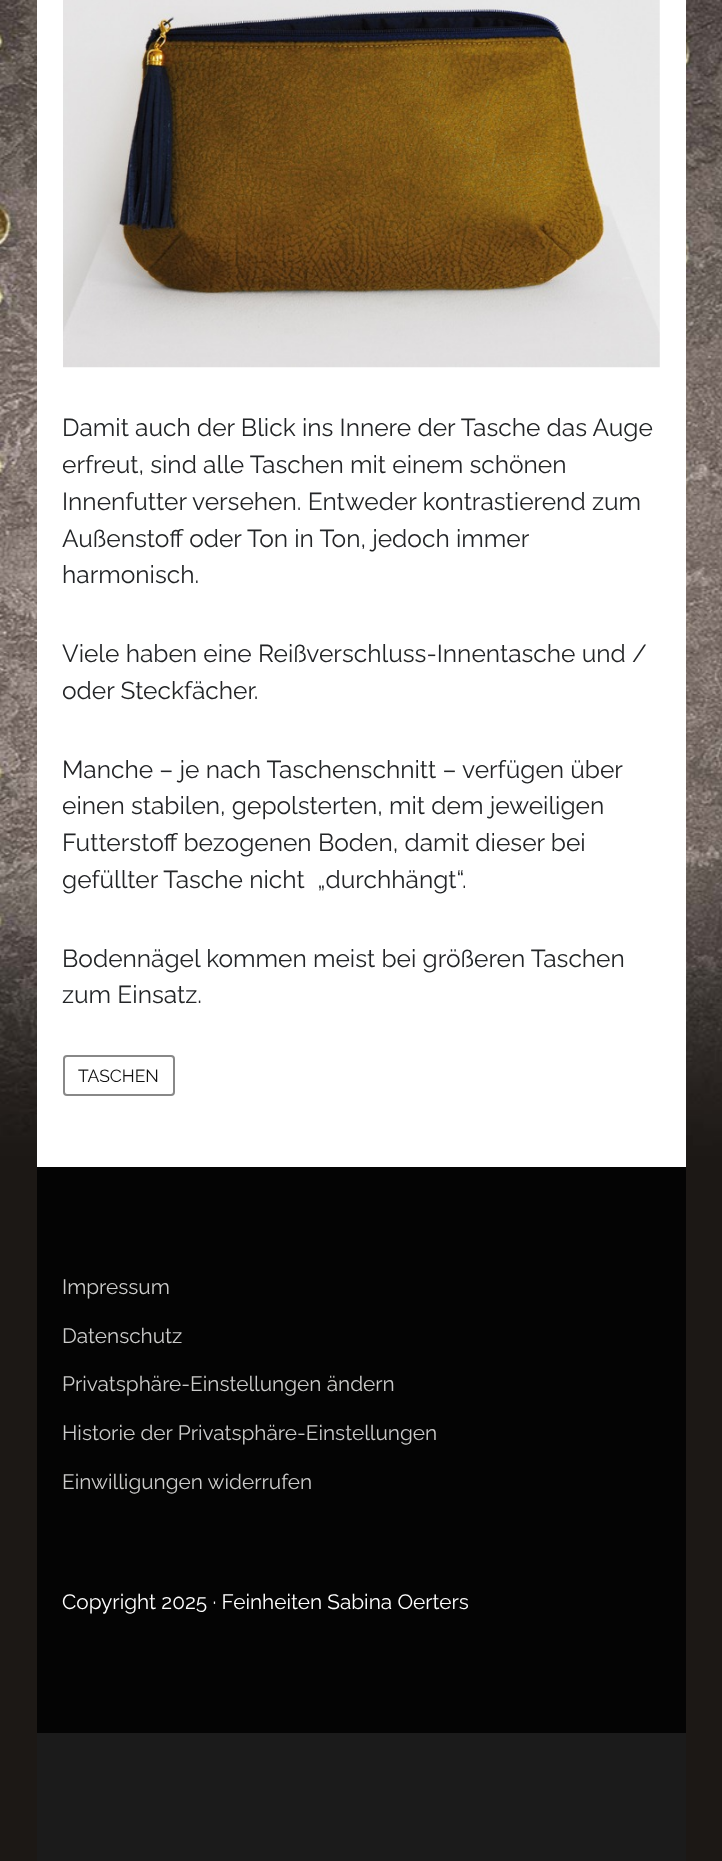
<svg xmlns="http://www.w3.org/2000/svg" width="722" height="1861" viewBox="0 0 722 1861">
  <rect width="100%" height="100%" fill="#ffffff"/>
  <image x="0" y="0" width="722" height="1861" href="img1.png"/>
  <rect x="37" y="0" width="649" height="1167" fill="#ffffff"/>
  <image x="63" y="0" width="597" height="368" href="img2.png"/>
  <text x="62" y="436" font-family="Raleway" font-size="24.5" fill="#232527">Damit auch der Blick ins Innere der Tasche das Auge</text>
  <text x="62" y="473" font-family="Raleway" font-size="24.5" fill="#232527">erfreut, sind alle Taschen mit einem schönen</text>
  <text x="62" y="510" font-family="Raleway" font-size="24.5" fill="#232527">Innenfutter versehen. Entweder kontrastierend zum</text>
  <text x="62" y="547" font-family="Raleway" font-size="24.5" fill="#232527">Außenstoff oder Ton in Ton, jedoch immer</text>
  <text x="62" y="583" font-family="Raleway" font-size="24.5" fill="#232527">harmonisch.</text>
  <text x="62" y="662" font-family="Raleway" font-size="24.5" fill="#232527">Viele haben eine Reißverschluss-Innentasche und /</text>
  <text x="62" y="699" font-family="Raleway" font-size="24.5" fill="#232527">oder Steckfächer.</text>
  <text x="62" y="778" font-family="Raleway" font-size="24.5" fill="#232527">Manche – je nach Taschenschnitt – verfügen über</text>
  <text x="62" y="814" font-family="Raleway" font-size="24.5" fill="#232527">einen stabilen, gepolsterten, mit dem jeweiligen</text>
  <text x="62" y="851" font-family="Raleway" font-size="24.5" fill="#232527">Futterstoff bezogenen Boden, damit dieser bei</text>
  <text x="62" y="888" font-family="Raleway" font-size="24.5" fill="#232527" xml:space="preserve">gefüllter Tasche nicht  „durchhängt“.</text>
  <text x="62" y="967" font-family="Raleway" font-size="24.5" fill="#232527">Bodennägel kommen meist bei größeren Taschen</text>
  <text x="62" y="1003" font-family="Raleway" font-size="24.5" fill="#232527">zum Einsatz.</text>
  <rect x="64" y="1056" width="110" height="39" rx="3" fill="none" stroke="#888888" stroke-width="2"/>
  <text x="78" y="1082" font-family="Raleway" font-size="17.5" fill="#111111">TASCHEN</text>
  <rect x="37" y="1733" width="649" height="128" fill="#1b1b1b"/>
  <rect x="37" y="1167" width="649" height="566" fill="#040404"/>
  <text x="62" y="1294" font-family="Raleway" font-size="20.8" fill="#cbcbca">Impressum</text>
  <text x="62" y="1343" font-family="Raleway" font-size="20.8" fill="#cbcbca">Datenschutz</text>
  <text x="62" y="1391" font-family="Raleway" font-size="20.8" fill="#cbcbca">Privatsphäre-Einstellungen ändern</text>
  <text x="62" y="1440" font-family="Raleway" font-size="20.8" fill="#cbcbca">Historie der Privatsphäre-Einstellungen</text>
  <text x="62" y="1489" font-family="Raleway" font-size="20.8" fill="#cbcbca">Einwilligungen widerrufen</text>
  <text x="62" y="1609" font-family="Raleway" font-size="20.8" fill="#ffffff">Copyright 2025 · Feinheiten Sabina Oerters</text>
</svg>
